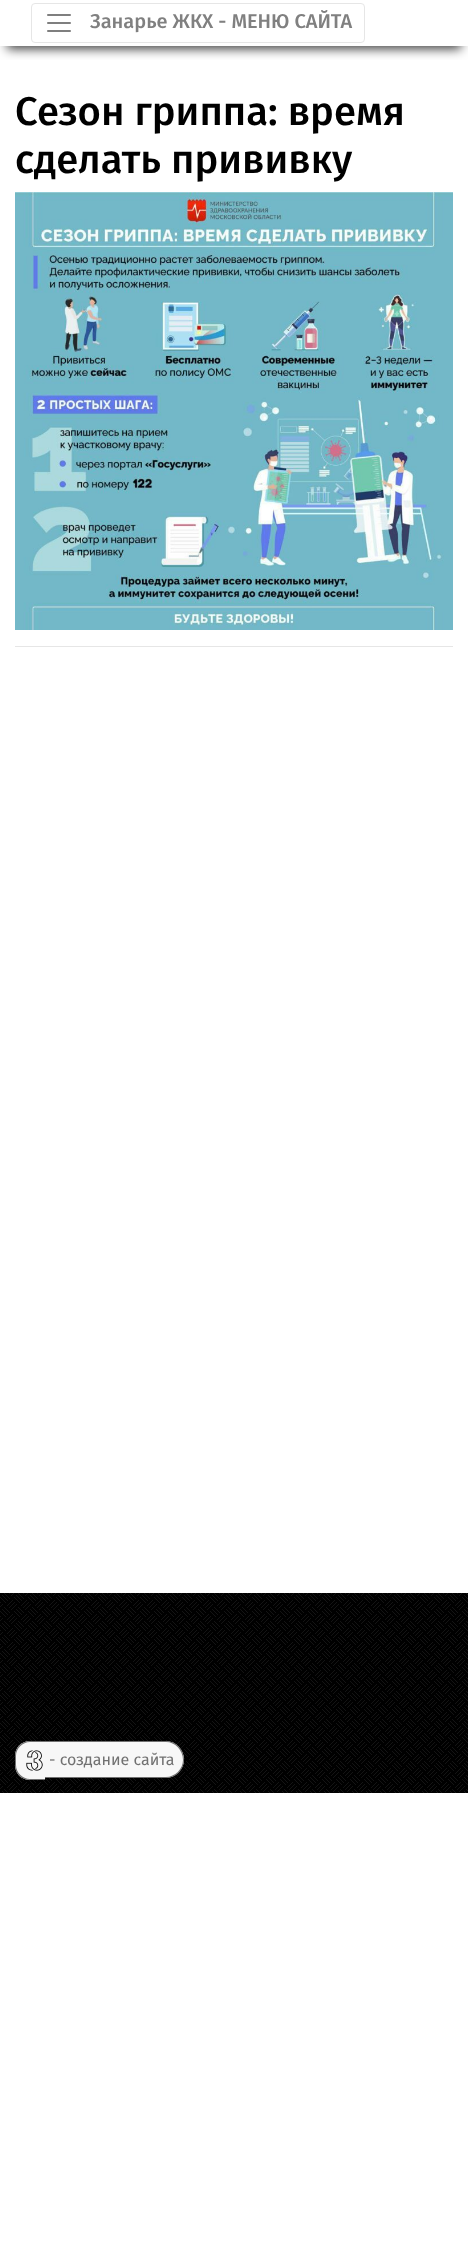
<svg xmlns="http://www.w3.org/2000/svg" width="468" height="2253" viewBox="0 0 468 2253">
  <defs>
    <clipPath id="clip1"><rect x="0" y="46" width="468" height="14"/></clipPath>
    <filter id="blur1" x="-50%" y="-200%" width="200%" height="500%"><feGaussianBlur stdDeviation="5.5"/></filter>
  </defs>
  <rect width="100%" height="100%" fill="#ffffff"/>
  <g clip-path="url(#clip1)">
    <rect x="7" y="17" width="454" height="32" fill="#000000" fill-opacity="0.75" filter="url(#blur1)"/>
  </g>
  <rect x="31.5" y="3.5" width="333" height="39" rx="3.5" fill="none" stroke="#e6e6e6"/>
  <image x="47" y="14" width="24" height="18" href="img1.png"/>
  <text x="90" y="28" font-family="Fira Sans" font-size="20" font-weight="500" fill="#808080">Занарье ЖКХ - МЕНЮ САЙТА</text>
  <text x="15" y="125" font-family="Fira Sans" font-size="40" font-weight="500" fill="#000000">Сезон гриппа: время</text>
  <text x="15" y="173" font-family="Fira Sans" font-size="40" font-weight="500" fill="#000000">сделать прививку</text>
  <image x="15" y="192" width="438" height="438" href="img2.png"/>
  <rect x="15" y="646" width="438" height="1" fill="#e6e6e6"/>
  <image x="0" y="1593" width="468" height="200" href="img3.png"/>
  <path d="M30 1741H45V1780H30C21.5 1780 15 1773.5 15 1765V1756C15 1747.5 21.5 1741 30 1741Z" fill="#f7f7f7"/>
  <path d="M30 1741H45V1780H30C21.5 1780 15 1773.5 15 1765V1756C15 1747.5 21.5 1741 30 1741ZM30 1742H45V1779H30C22.5 1779 16 1772.5 16 1765V1756C16 1748.5 22.5 1742 30 1742Z" fill="#717171" fill-rule="evenodd"/>
  <image x="26" y="1750" width="17" height="21" href="img4.png"/>
  <path d="M45 1741H165.5C175.5 1741 184 1749.5 184 1759.5C184 1769.5 175.5 1778 165.5 1778H45Z" fill="#f7f7f7"/>
  <path d="M45 1741H166C176 1741 184 1749 184 1760C184 1770 176 1778 166 1778H45ZM45 1742H166C175 1742 183 1750 183 1760C183 1769 175 1777 166 1777H45Z" fill="#717171" fill-rule="evenodd"/>
  <text x="49" y="1765" font-family="Fira Sans" font-size="16" fill="#717171">- создание сайта</text>
</svg>
